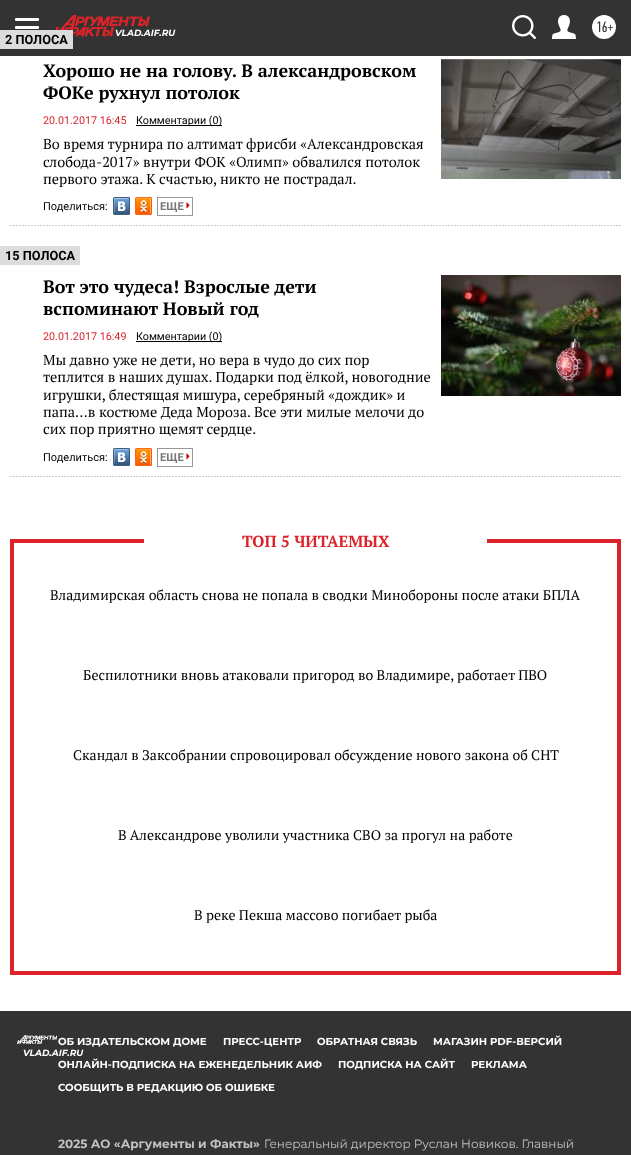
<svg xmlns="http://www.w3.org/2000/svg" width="631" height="1155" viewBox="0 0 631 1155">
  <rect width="100%" height="100%" fill="#ffffff"/>
  <rect x="0" y="0" width="631" height="56" fill="#333333"/>
  <rect x="15" y="18" width="24" height="3" rx="1" fill="#ffffff"/>
  <rect x="15" y="26" width="24" height="3" rx="1" fill="#ffffff"/>
  <image x="55" y="15" width="95" height="22" href="img1.png"/>
  <text x="115" y="36" font-family="Montserrat" font-size="9" font-weight="bold" font-style="italic" fill="#ffffff">VLAD.AIF.RU</text>
  <image x="512" y="15" width="24" height="24" href="img2.png"/>
  <image x="552" y="15" width="24" height="24" href="img3.png"/>
  <circle cx="604" cy="27" r="12" fill="#ffffff"/>
  <text x="596" y="32" font-family="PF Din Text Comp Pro" font-size="15" fill="#333333">16+</text>
  <rect x="0" y="30" width="73" height="19" fill="#dcdcdc"/>
  <text x="5" y="44" font-family="Roboto" font-size="12.75" font-weight="bold" fill="#000000">2 ПОЛОСА</text>
  <text x="43" y="77" font-family="PT Serif" font-size="18" font-weight="bold" fill="#000000">Хорошо не на голову. В александровском</text>
  <text x="43" y="99" font-family="PT Serif" font-size="18" font-weight="bold" fill="#000000">ФОКе рухнул потолок</text>
  <text x="43" y="124" font-family="Roboto" font-size="10.75" fill="#dc232a">20.01.2017 16:45</text>
  <rect x="136" y="125" width="86" height="1" fill="#000000"/>
  <text x="136" y="124" font-family="Roboto" font-size="10.75" fill="#000000">Комментарии (0)</text>
  <text x="43" y="149" font-family="PT Serif" font-size="14.4" fill="#000000">Во время турнира по алтимат фрисби «Александровская</text>
  <text x="43" y="167" font-family="PT Serif" font-size="14.4" fill="#000000">слобода-2017» внутри ФОК «Олимп» обвалился потолок</text>
  <text x="43" y="184" font-family="PT Serif" font-size="14.4" fill="#000000">первого этажа. К счастью, никто не пострадал.</text>
  <image x="441" y="59" width="180" height="120" href="img4.png"/>
  <image x="10" y="225" width="611" height="1" href="img5.png"/>
  <text x="43" y="210" font-family="Roboto" font-size="11" fill="#000000">Поделиться:</text>
  <image x="113" y="197" width="17" height="18" href="img6.png"/>
  <image x="135" y="197" width="17" height="18" href="img7.png"/>
  <rect x="157.5" y="197.5" width="35" height="18" fill="none" stroke="#989898"/>
  <text x="160" y="210" font-family="Roboto" font-size="11" font-weight="bold" fill="#777777">ЕЩЕ</text>
  <image x="186" y="202" width="4" height="7" href="img8.png"/>
  <rect x="0" y="246" width="80" height="19" fill="#dcdcdc"/>
  <text x="5" y="260" font-family="Roboto" font-size="12.75" font-weight="bold" fill="#000000">15 ПОЛОСА</text>
  <text x="43" y="293" font-family="PT Serif" font-size="18" font-weight="bold" fill="#000000">Вот это чудеса! Взрослые дети</text>
  <text x="43" y="315" font-family="PT Serif" font-size="18" font-weight="bold" fill="#000000">вспоминают Новый год</text>
  <text x="43" y="340" font-family="Roboto" font-size="10.75" fill="#dc232a">20.01.2017 16:49</text>
  <rect x="136" y="341" width="86" height="1" fill="#000000"/>
  <text x="136" y="340" font-family="Roboto" font-size="10.75" fill="#000000">Комментарии (0)</text>
  <text x="43" y="365" font-family="PT Serif" font-size="14.4" fill="#000000">Мы давно уже не дети, но вера в чудо до сих пор</text>
  <text x="43" y="382" font-family="PT Serif" font-size="14.4" fill="#000000">теплится в наших душах. Подарки под ёлкой, новогодние</text>
  <text x="43" y="400" font-family="PT Serif" font-size="14.4" fill="#000000">игрушки, блестящая мишура, серебряный «дождик» и</text>
  <text x="43" y="417" font-family="PT Serif" font-size="14.4" fill="#000000">папа…в костюме Деда Мороза. Все эти милые мелочи до</text>
  <text x="43" y="434" font-family="PT Serif" font-size="14.4" fill="#000000">сих пор приятно щемят сердце.</text>
  <image x="441" y="275" width="180" height="121" href="img9.png"/>
  <image x="10" y="476" width="611" height="1" href="img5.png"/>
  <text x="43" y="461" font-family="Roboto" font-size="11" fill="#000000">Поделиться:</text>
  <image x="113" y="448" width="17" height="18" href="img6.png"/>
  <image x="135" y="448" width="17" height="18" href="img7.png"/>
  <rect x="157.5" y="448.5" width="35" height="18" fill="none" stroke="#989898"/>
  <text x="160" y="461" font-family="Roboto" font-size="11" font-weight="bold" fill="#777777">ЕЩЕ</text>
  <image x="186" y="453" width="4" height="7" href="img8.png"/>
  <rect x="617" y="539" width="4" height="436" fill="#da2429"/>
  <rect x="10" y="971" width="611" height="4" fill="#da2429"/>
  <rect x="10" y="539" width="4" height="436" fill="#da2429"/>
  <rect x="10" y="539" width="134" height="4" fill="#da2429"/>
  <text x="242" y="547" font-family="PT Serif" font-size="16" font-weight="bold" fill="#dc232a">ТОП 5 ЧИТАЕМЫХ</text>
  <rect x="487" y="539" width="134" height="4" fill="#da2429"/>
  <text x="50" y="600" font-family="PT Serif" font-size="14" fill="#000000">Владимирская область снова не попала в сводки Минобороны после атаки БПЛА</text>
  <text x="83" y="680" font-family="PT Serif" font-size="14" fill="#000000">Беспилотники вновь атаковали пригород во Владимире, работает ПВО</text>
  <text x="73" y="760" font-family="PT Serif" font-size="14" fill="#000000">Скандал в Заксобрании спровоцировал обсуждение нового закона об СНТ</text>
  <text x="118" y="840" font-family="PT Serif" font-size="14" fill="#000000">В Александрове уволили участника СВО за прогул на работе</text>
  <text x="194" y="920" font-family="PT Serif" font-size="14" fill="#000000">В реке Пекша массово погибает рыба</text>
  <rect x="0" y="1011" width="631" height="144" fill="#333333"/>
  <image x="17" y="1035" width="40" height="9" href="img10.png"/>
  <text x="23" y="1056" font-family="Montserrat" font-size="9" font-weight="bold" font-style="italic" fill="#ffffff">VLAD.AIF.RU</text>
  <text x="58" y="1045" font-family="Montserrat" font-size="10.2" font-weight="bold" fill="#ffffff">ОБ ИЗДАТЕЛЬСКОМ ДОМЕ</text>
  <text x="223" y="1045" font-family="Montserrat" font-size="10.2" font-weight="bold" fill="#ffffff">ПРЕСС-ЦЕНТР</text>
  <text x="317" y="1045" font-family="Montserrat" font-size="10.2" font-weight="bold" fill="#ffffff">ОБРАТНАЯ СВЯЗЬ</text>
  <text x="433" y="1045" font-family="Montserrat" font-size="10.2" font-weight="bold" fill="#ffffff">МАГАЗИН PDF-ВЕРСИЙ</text>
  <text x="58" y="1068" font-family="Montserrat" font-size="10.2" font-weight="bold" fill="#ffffff">ОНЛАЙН-ПОДПИСКА НА ЕЖЕНЕДЕЛЬНИК АИФ</text>
  <text x="338" y="1068" font-family="Montserrat" font-size="10.2" font-weight="bold" fill="#ffffff">ПОДПИСКА НА САЙТ</text>
  <text x="471" y="1068" font-family="Montserrat" font-size="10.2" font-weight="bold" fill="#ffffff">РЕКЛАМА</text>
  <text x="58" y="1091" font-family="Montserrat" font-size="10.2" font-weight="bold" fill="#ffffff">СООБЩИТЬ В РЕДАКЦИЮ ОБ ОШИБКЕ</text>
  <text x="58" y="1148" font-family="Montserrat" font-size="12" font-weight="bold" fill="#c2c2c2">2025 АО «Аргументы и Факты»</text>
  <text x="264" y="1148" font-family="Montserrat" font-size="12" fill="#c2c2c2">Генеральный директор Руслан Новиков. Главный</text>
</svg>
